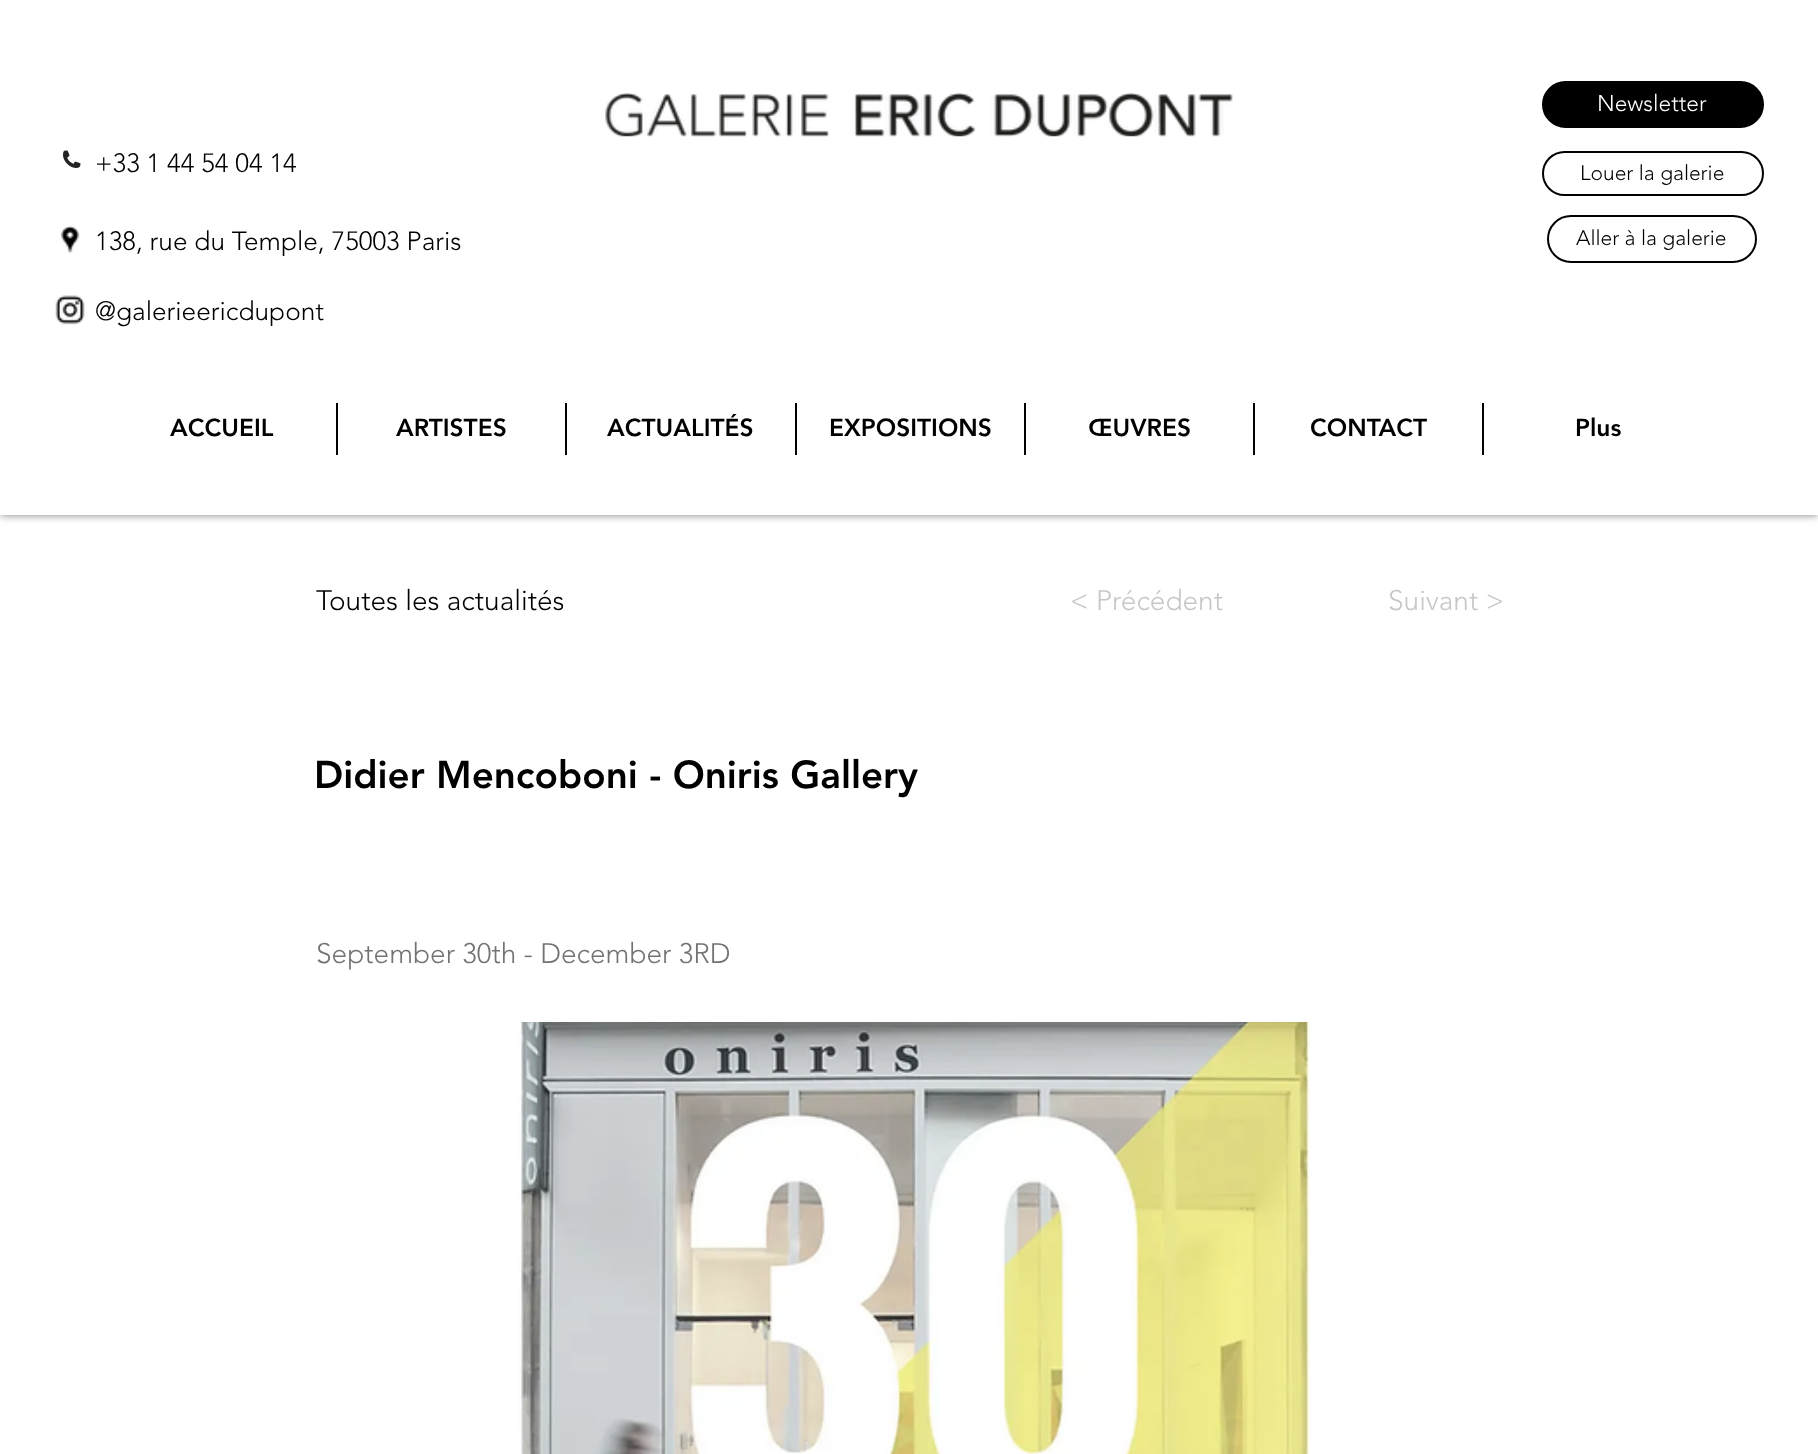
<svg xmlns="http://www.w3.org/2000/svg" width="1818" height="1454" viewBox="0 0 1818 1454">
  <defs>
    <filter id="blur1" x="-50%" y="-200%" width="200%" height="500%"><feGaussianBlur stdDeviation="4.5"/></filter>
  </defs>
  <rect width="100%" height="100%" fill="#ffffff"/>
  <rect x="0" y="0" width="1818" height="515" fill="#000000" fill-opacity="0.5" filter="url(#blur1)"/>
  <rect x="0" y="0" width="1818" height="515" fill="#ffffff"/>
  <image x="605" y="93" width="628" height="44" href="img1.png"/>
  <rect x="1543" y="82" width="220" height="45" rx="22.5" fill="#000000" stroke="#000000" stroke-width="2"/>
  <text x="1597" y="111" font-family="'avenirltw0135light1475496'" font-size="22.75" font-weight="300" fill="#ffffff">Newsletter</text>
  <image x="63" y="150" width="18" height="18" href="img2.png"/>
  <text x="95" y="172" font-family="'avenirltw0135light1475496'" font-size="26.25" font-weight="300" fill="#000000">+33 1 44 54 04 14</text>
  <image x="60" y="225" width="20" height="28" href="img3.png"/>
  <image x="55" y="295" width="30" height="30" href="img4.png"/>
  <text x="95" y="250" font-family="'avenirltw0135light1475496'" font-size="26.25" font-weight="300" fill="#000000">138, rue du Temple, 75003 Paris</text>
  <text x="95" y="320" font-family="'avenirltw0135light1475496'" font-size="26.25" font-weight="300" fill="#000000">@galerieericdupont</text>
  <rect x="1543" y="152" width="220" height="43" rx="21.5" fill="none" stroke="#000000" stroke-width="2"/>
  <text x="1580" y="180" font-family="'avenirltw0135light1475496'" font-size="21" font-weight="300" fill="#000000">Louer la galerie</text>
  <rect x="1548" y="216" width="208" height="46" rx="23" fill="none" stroke="#000000" stroke-width="2"/>
  <text x="1576" y="245" font-family="'avenirltw0135light1475496'" font-size="21" font-weight="300" fill="#000000">Aller à la galerie</text>
  <text x="170" y="436" font-family="'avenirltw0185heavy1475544'" font-size="24.5" font-weight="900" fill="#000000">ACCUEIL</text>
  <rect x="336" y="403" width="2" height="52" fill="#000000"/>
  <text x="396" y="436" font-family="'avenirltw0185heavy1475544'" font-size="24.5" font-weight="900" fill="#000000">ARTISTES</text>
  <rect x="565" y="403" width="2" height="52" fill="#000000"/>
  <text x="607" y="436" font-family="'avenirltw0185heavy1475544'" font-size="24.5" font-weight="900" fill="#000000">ACTUALITÉS</text>
  <rect x="795" y="403" width="2" height="52" fill="#000000"/>
  <text x="829" y="436" font-family="'avenirltw0185heavy1475544'" font-size="24.5" font-weight="900" fill="#000000">EXPOSITIONS</text>
  <rect x="1024" y="403" width="2" height="52" fill="#000000"/>
  <text x="1088" y="436" font-family="'avenirltw0185heavy1475544'" font-size="24.5" font-weight="900" fill="#000000">ŒUVRES</text>
  <rect x="1253" y="403" width="2" height="52" fill="#000000"/>
  <text x="1310" y="436" font-family="'avenirltw0185heavy1475544'" font-size="24.5" font-weight="900" fill="#000000">CONTACT</text>
  <rect x="1482" y="403" width="2" height="52" fill="#000000"/>
  <text x="1575" y="436" font-family="'avenirltw0185heavy1475544'" font-size="24.5" font-weight="900" fill="#000000">Plus</text>
  <text x="316" y="610" font-family="'avenirltw0135light1475496'" font-size="28" font-weight="300" fill="#000000">Toutes les actualités</text>
  <text x="1070" y="610" font-family="'avenirltw0135light1475496'" font-size="28" font-weight="300" fill="#c7c7c7">&lt; Précédent</text>
  <text x="1388" y="610" font-family="'avenirltw0135light1475496'" font-size="28" font-weight="300" fill="#c7c7c7">Suivant &gt;</text>
  <text x="314" y="788" font-family="'avenirltw0185heavy1475544'" font-size="38.5" font-weight="900" fill="#000000">Didier Mencoboni - Oniris Gallery</text>
  <text x="316" y="963" font-family="'avenirltw0135light1475496'" font-size="28" font-weight="300" fill="#737373">September 30th - December 3RD</text>
  <image x="518" y="1022" width="792" height="432" href="img5.png"/>
</svg>
